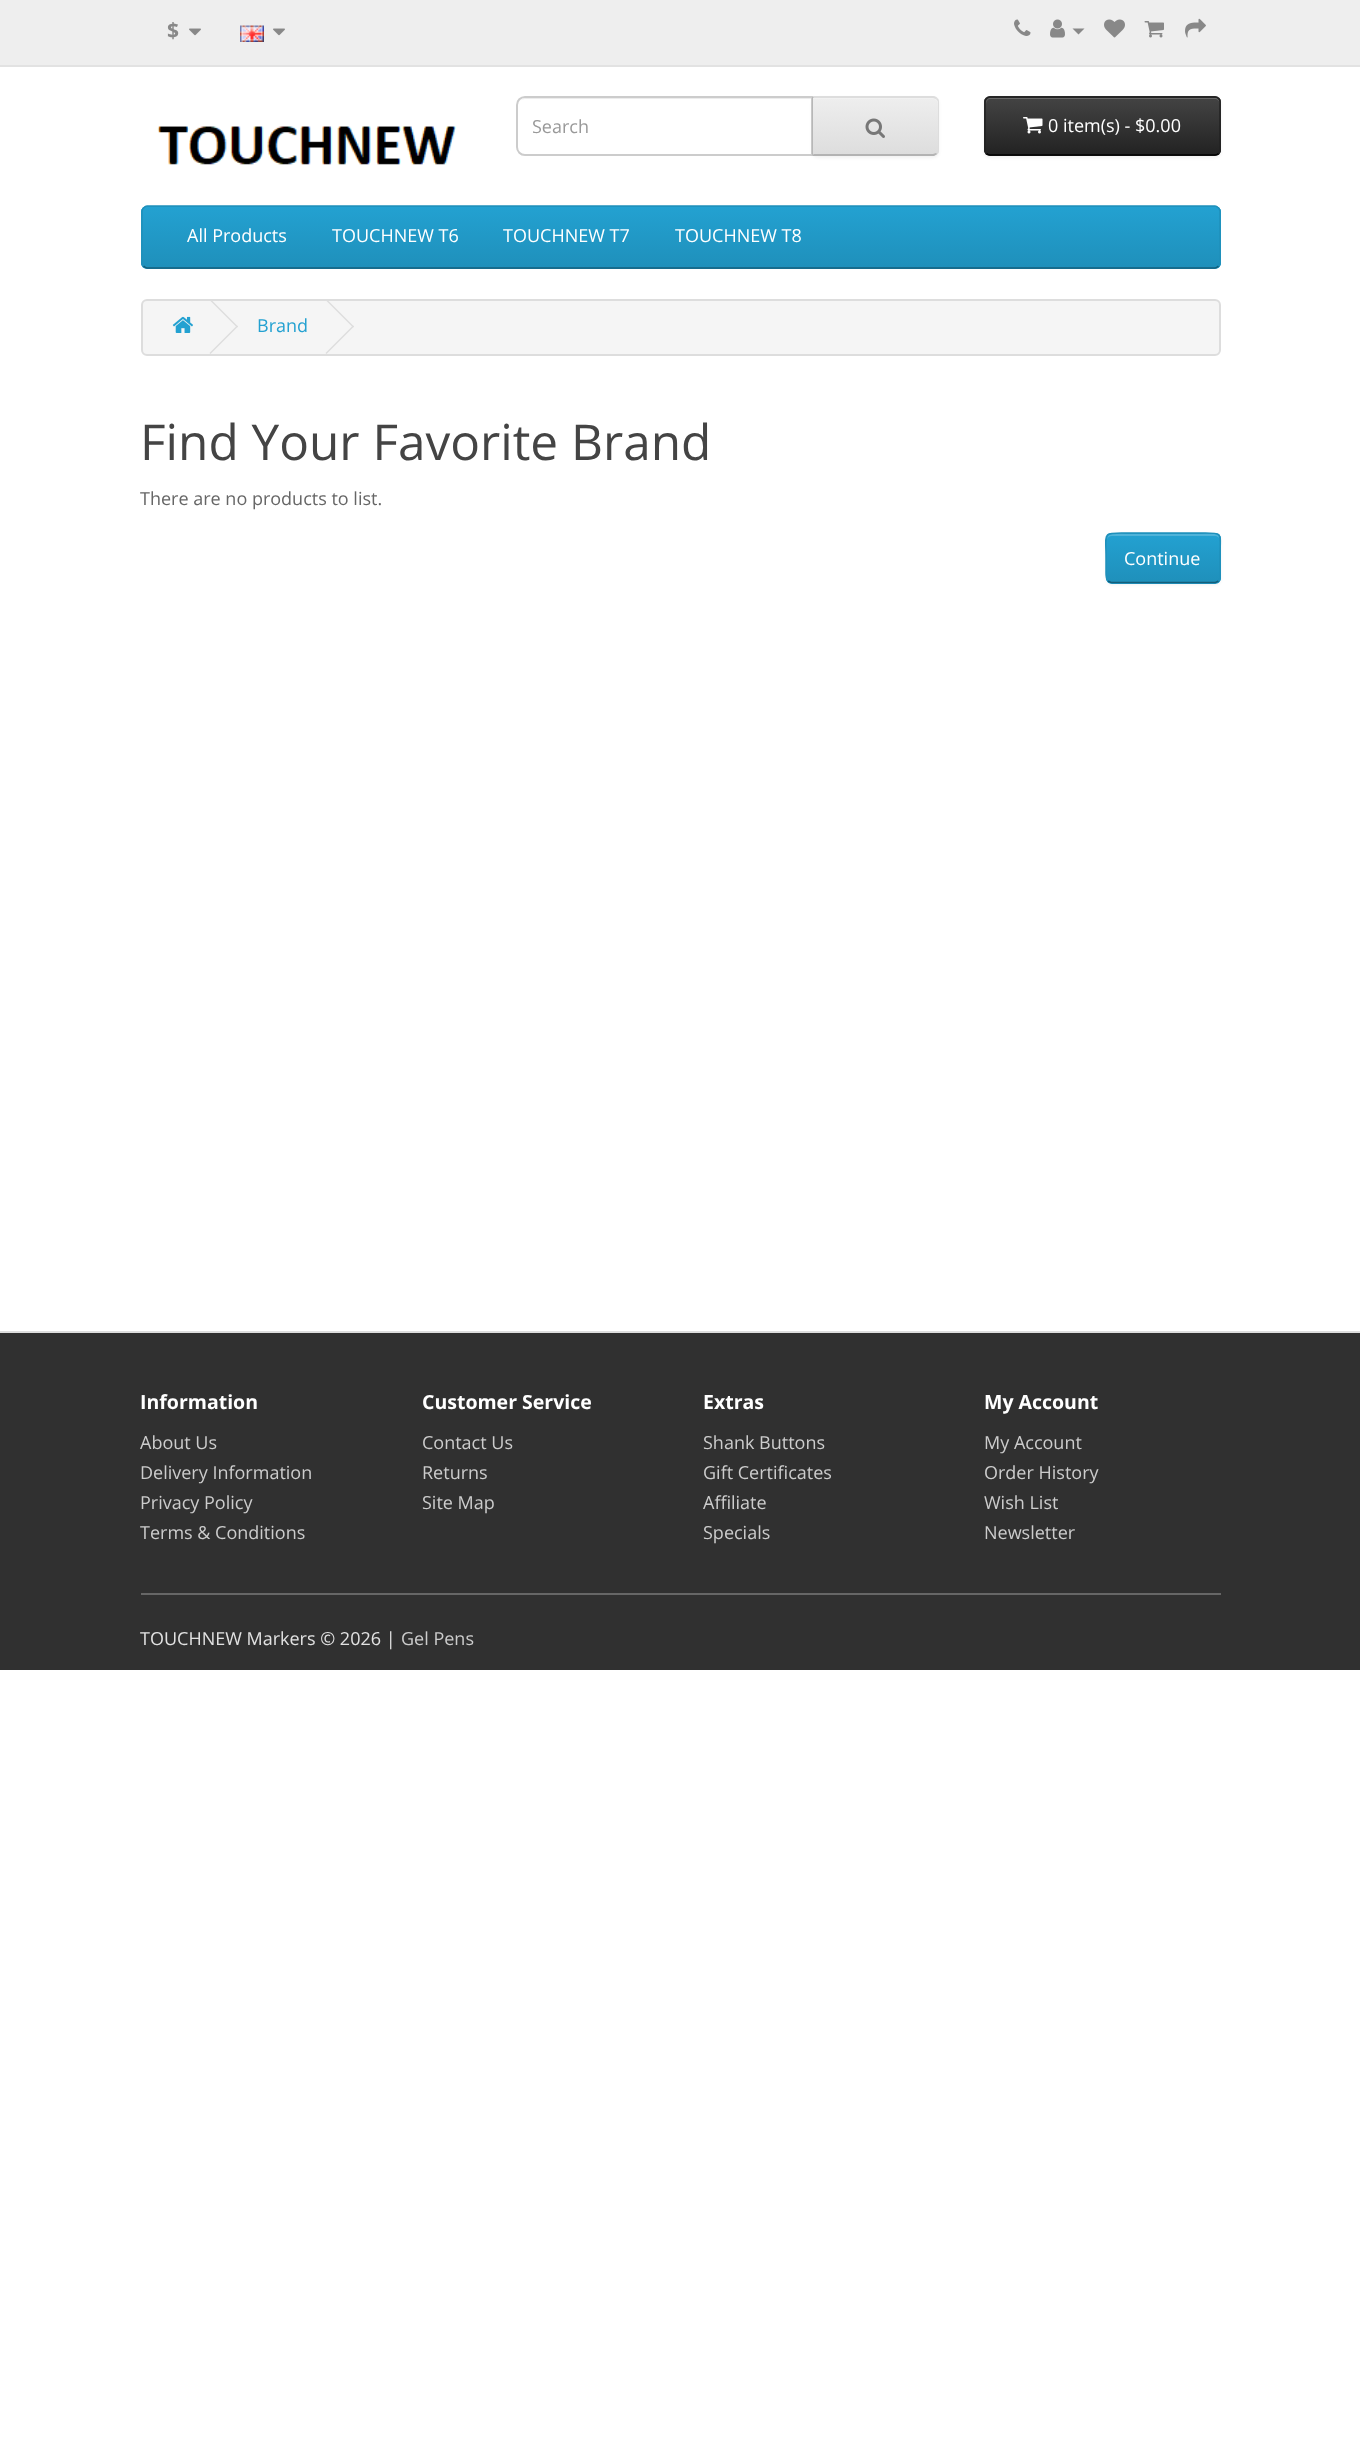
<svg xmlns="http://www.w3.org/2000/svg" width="1360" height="2438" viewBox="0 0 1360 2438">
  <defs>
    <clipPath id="clip1"><rect x="533" y="114" width="264" height="26"/></clipPath>
    <filter id="blur1" x="-50%" y="-200%" width="200%" height="500%"><feGaussianBlur stdDeviation="1.5"/></filter>
    <clipPath id="clip2"><path d="M812 96H933C936.5 96 939 98.5 939 102V150C939 153.5 936.5 156 933 156H812Z"/></clipPath>
    <linearGradient id="g1" gradientUnits="userSpaceOnUse" x1="875" y1="98" x2="875" y2="155"><stop offset="0" stop-color="#eeeeee"/><stop offset="1" stop-color="#dddddd"/></linearGradient>
    <clipPath id="clip3"><rect x="984" y="96" width="237" height="60" rx="6"/></clipPath>
    <linearGradient id="g2" gradientUnits="userSpaceOnUse" x1="1103" y1="97" x2="1103" y2="155"><stop offset="0" stop-color="#444444"/><stop offset="1" stop-color="#222222"/></linearGradient>
    <clipPath id="clip4"><rect x="141" y="206" width="1080" height="63" rx="6"/></clipPath>
    <linearGradient id="g3" gradientUnits="userSpaceOnUse" x1="681" y1="207" x2="681" y2="267"><stop offset="0" stop-color="#23a1d1"/><stop offset="1" stop-color="#1f90bb"/></linearGradient>
    <clipPath id="clip5"><rect x="1106" y="533" width="115" height="51" rx="6"/></clipPath>
    <linearGradient id="g4" gradientUnits="userSpaceOnUse" x1="1163" y1="534" x2="1163" y2="582"><stop offset="0" stop-color="#23a1d1"/><stop offset="1" stop-color="#1f90bb"/></linearGradient>
  </defs>
  <rect width="100%" height="100%" fill="#ffffff"/>
  <rect x="0" y="0" width="1360" height="65" fill="#eeeeee"/>
  <rect x="0" y="65" width="1360" height="2" fill="#e2e2e2"/>
  <text x="167" y="38" font-family="Open Sans" font-size="21" font-weight="bold" fill="#888888">$</text>
  <image x="189" y="28" width="12" height="8" href="img1.png"/>
  <image x="240" y="25" width="24" height="17" href="img2.png"/>
  <image x="273" y="28" width="12" height="8" href="img1.png"/>
  <image x="1014" y="19" width="17" height="17" href="img3.png"/>
  <image x="1050" y="19" width="15" height="19" href="img4.png"/>
  <path d="M1072.5 28.5H1084.5L1078.5 34.5Z" fill="#888888"/>
  <image x="1104" y="19" width="21" height="19" href="img5.png"/>
  <image x="1144" y="21" width="20" height="17" href="img6.png"/>
  <image x="1185" y="18" width="21" height="20" href="img7.png"/>
  <image x="157" y="126" width="299" height="39" href="img8.png"/>
  <path d="M525 99H812V98H526C522 98 518 102 518 106C518 102 521 99 525 99Z" fill="#ececec"/>
  <path d="M525 97H812V155H525C520.5 155 517 151.5 517 147V105C517 100.5 520.5 97 525 97Z" fill="none" stroke="#cccccc" stroke-width="2"/>
  <g clip-path="url(#clip1)">
    <text x="532" y="133" font-family="Open Sans" font-size="18" fill="#999999">Search</text>
  </g>
  <rect x="812" y="98" width="127" height="60" rx="6" fill="#000000" fill-opacity="0.05" filter="url(#blur1)"/>
  <path d="M812 96H933C936.5 96 939 98.5 939 102V150C939 153.5 936.5 156 933 156H812Z" fill="#e7e7e7"/>
  <g clip-path="url(#clip2)">
    <rect x="813" y="98" width="126" height="57" fill="url(#g1)"/>
  </g>
  <path d="M813 99H933C935 99 938 101 938 104V103C938 100 936 98 933 98H813Z" fill="#f1f1f1"/>
  <path d="M812 96L814 98H933L936 99L937 98C936 97 934 96 933 96Z" fill="#dddddd"/>
  <path d="M939 150V102C939 100 938 99 937 98L936 99C937 100 938 101 938 102V150C938 151 937 152 936 153L937 154C938 153 939 152 939 150Z" fill="#dddddd"/>
  <path d="M812 156H934L937 154L936 153L933 154H814Z" fill="#b3b3b3"/>
  <path d="M813 98H814L812 96V156L814 154H813Z" fill="#b7b7b7"/>
  <image x="865" y="118" width="20" height="20" href="img9.png"/>
  <rect x="984" y="98" width="237" height="60" rx="6" fill="#000000" fill-opacity="0.05" filter="url(#blur1)"/>
  <rect x="984" y="96" width="237" height="60" rx="6" fill="#363636"/>
  <g clip-path="url(#clip3)">
    <rect x="984" y="98" width="237" height="57" fill="url(#g2)"/>
  </g>
  <path d="M990 99H1215C1217 99 1220 101 1220 104V103C1220 100 1218 98 1215 98H991C988 98 986 100 986 103V104C986 101 988 99 990 99Z" fill="#696969"/>
  <path d="M1218.5 153.5C1217.5 154.5 1216.5 155 1215 155H990C988.5 155 987.5 154.5 986.5 153.5" fill="none" stroke="#000000" stroke-width="1.5"/>
  <path d="M986.5 153.5C985.5 152.5 985 151.5 985 150V102C985 100.5 985.5 99.5 986.5 98.5C987.5 97.5 988.5 97 990 97H1215C1216.5 97 1217.5 97.5 1218.5 98.5C1219.5 99.5 1220 100.5 1220 102V150C1220 151.5 1219.5 152.5 1218.5 153.5" fill="none" stroke="#222222" stroke-width="1.5"/>
  <image x="1023" y="117" width="20" height="17" href="img10.png"/>
  <text x="1048" y="132" font-family="Open Sans" font-size="18" fill="#ffffff">0 item(s) - $0.00</text>
  <rect x="141" y="206" width="1080" height="63" rx="6" fill="#229ac8"/>
  <g clip-path="url(#clip4)">
    <rect x="141" y="207" width="1080" height="60" fill="url(#g3)"/>
  </g>
  <path d="M1218.5 266C1217.5 267 1216.5 268 1215 268H147C145.5 268 144.5 267 143.5 266" fill="none" stroke="#145e7a" stroke-width="1.5"/>
  <path d="M143.5 266C142.5 265 142 264 142 262.5V211.5C142 210 142.5 209 143.5 208C144.5 207 145.5 206 147 206H1215C1216.5 206 1217.5 207 1218.5 208C1219.5 209 1220 210 1220 211.5V262.5C1220 264 1219.5 265 1218.5 266" fill="none" stroke="#1f90bb" stroke-width="1.5"/>
  <text x="187" y="242" font-family="Open Sans" font-size="18" fill="#ffffff">All Products</text>
  <text x="332" y="242" font-family="Open Sans" font-size="18" fill="#ffffff">TOUCHNEW T6</text>
  <text x="503" y="242" font-family="Open Sans" font-size="18" fill="#ffffff">TOUCHNEW T7</text>
  <text x="675" y="242" font-family="Open Sans" font-size="18" fill="#ffffff">TOUCHNEW T8</text>
  <rect x="142" y="300" width="1078" height="55" rx="5" fill="#f5f5f5" stroke="#dddddd" stroke-width="2"/>
  <image x="172" y="316" width="21" height="17" href="img11.png"/>
  <path d="M209.5 300L210.5 299L238 326.5L237 327.5Z" fill="#dddddd"/>
  <path d="M209.5 353L237 325.5L238 326.5L210.5 354Z" fill="#dddddd"/>
  <text x="257" y="332" font-family="Open Sans" font-size="18" fill="#23a1d1">Brand</text>
  <path d="M325.5 300L326.5 299L354 326.5L353 327.5Z" fill="#dddddd"/>
  <path d="M325.5 353L353 325.5L354 326.5L326.5 354Z" fill="#dddddd"/>
  <text x="140" y="460" font-family="Open Sans" font-size="49.5" fill="#444444">Find Your Favorite Brand</text>
  <text x="140" y="505" font-family="Open Sans" font-size="18" fill="#666666">There are no products to list.</text>
  <rect x="1106" y="534" width="115" height="51" rx="6" fill="#000000" fill-opacity="0.05" filter="url(#blur1)"/>
  <rect x="1106" y="533" width="115" height="51" rx="6" fill="#229ac8"/>
  <g clip-path="url(#clip5)">
    <rect x="1106" y="534" width="115" height="48" fill="url(#g4)"/>
  </g>
  <path d="M1112 536H1215C1217 536 1220 538 1220 540C1220 530 1203 534 1198 534H1129C1124 534 1107 530 1107 540C1107 538 1109 536 1112 536Z" fill="#ffffff" fill-opacity="0.2"/>
  <path d="M1218.5 581L1215.5 582.5H1111L1108 581" fill="none" stroke="#145e7a" stroke-width="1.5"/>
  <path d="M1108 581C1105.5 578.5 1106 574 1106 571V558C1106 530.5 1101.5 533 1129 533H1198C1225 533 1220 530.5 1220 558V571C1220 574 1221 578.5 1218.5 581" fill="none" stroke="#1f90bb" stroke-width="1.5"/>
  <text x="1124" y="565" font-family="Open Sans" font-size="18" fill="#ffffff">Continue</text>
  <rect x="0" y="1333" width="1360" height="337" fill="#303030"/>
  <rect x="0" y="1331" width="1360" height="2" fill="#dddddd"/>
  <text x="140" y="1409" font-family="Open Sans" font-size="19.5" font-weight="bold" fill="#ffffff">Information</text>
  <text x="140" y="1449" font-family="Open Sans" font-size="18" fill="#cccccc">About Us</text>
  <text x="140" y="1479" font-family="Open Sans" font-size="18" fill="#cccccc">Delivery Information</text>
  <text x="140" y="1509" font-family="Open Sans" font-size="18" fill="#cccccc">Privacy Policy</text>
  <text x="140" y="1539" font-family="Open Sans" font-size="18" fill="#cccccc">Terms &amp; Conditions</text>
  <text x="422" y="1409" font-family="Open Sans" font-size="19.5" font-weight="bold" fill="#ffffff">Customer Service</text>
  <text x="422" y="1449" font-family="Open Sans" font-size="18" fill="#cccccc">Contact Us</text>
  <text x="422" y="1479" font-family="Open Sans" font-size="18" fill="#cccccc">Returns</text>
  <text x="422" y="1509" font-family="Open Sans" font-size="18" fill="#cccccc">Site Map</text>
  <text x="703" y="1409" font-family="Open Sans" font-size="19.5" font-weight="bold" fill="#ffffff">Extras</text>
  <text x="703" y="1449" font-family="Open Sans" font-size="18" fill="#cccccc">Shank Buttons</text>
  <text x="703" y="1479" font-family="Open Sans" font-size="18" fill="#cccccc">Gift Certificates</text>
  <text x="703" y="1509" font-family="Open Sans" font-size="18" fill="#cccccc">Affiliate</text>
  <text x="703" y="1539" font-family="Open Sans" font-size="18" fill="#cccccc">Specials</text>
  <text x="984" y="1409" font-family="Open Sans" font-size="19.5" font-weight="bold" fill="#ffffff">My Account</text>
  <text x="984" y="1449" font-family="Open Sans" font-size="18" fill="#cccccc">My Account</text>
  <text x="984" y="1479" font-family="Open Sans" font-size="18" fill="#cccccc">Order History</text>
  <text x="984" y="1509" font-family="Open Sans" font-size="18" fill="#cccccc">Wish List</text>
  <text x="984" y="1539" font-family="Open Sans" font-size="18" fill="#cccccc">Newsletter</text>
  <rect x="141" y="1593" width="1080" height="2" fill="#666666"/>
  <text x="140" y="1645" font-family="Open Sans" font-size="18" fill="#e2e2e2">TOUCHNEW Markers © 2026 |</text>
  <text x="401" y="1645" font-family="Open Sans" font-size="18" fill="#cccccc">Gel Pens</text>
</svg>
